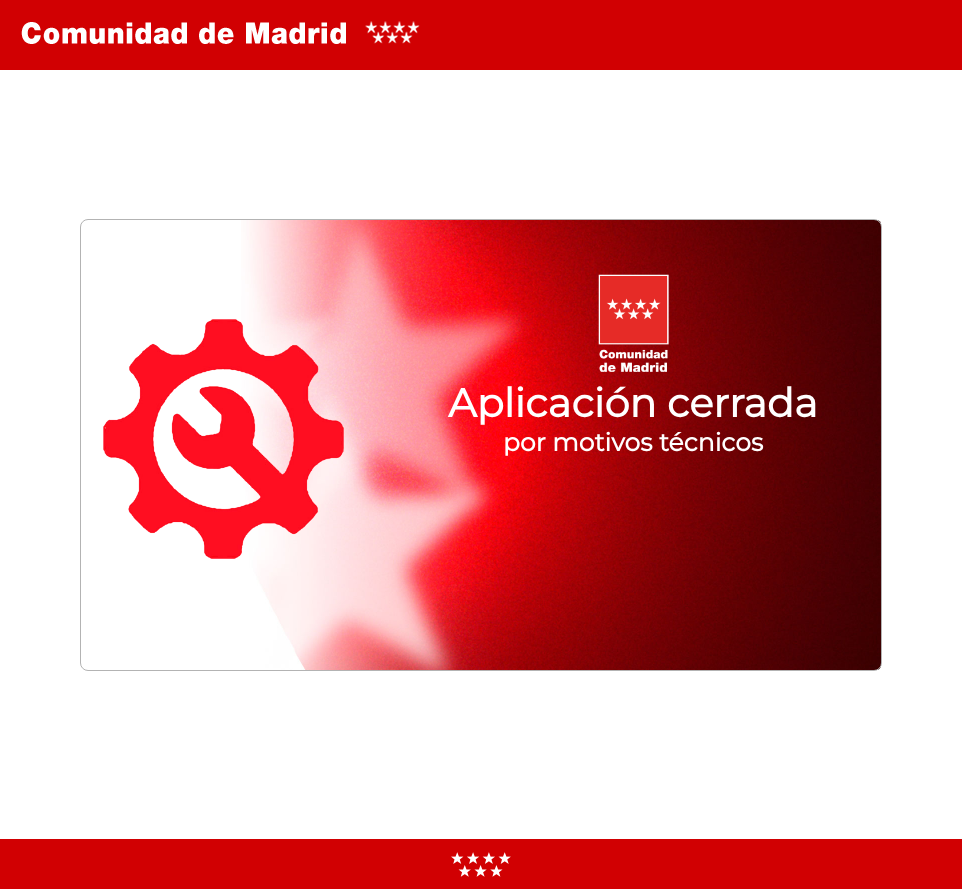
<svg xmlns="http://www.w3.org/2000/svg" width="962" height="889" viewBox="0 0 962 889">
  <rect width="100%" height="100%" fill="#ffffff"/>
  <rect x="0" y="0" width="962" height="70" fill="#d10002"/>
  <image x="21" y="21" width="399" height="23" href="img1.png"/>
  <image x="241" y="220" width="640" height="450" href="img2.png"/>
  <rect x="80.5" y="219.5" width="801" height="451" rx="7.5" fill="none" stroke="#b3b3b3"/>
  <image x="103" y="319" width="241" height="240" href="img3.png"/>
  <image x="598" y="274" width="71" height="98" href="img4.png"/>
  <text x="448" y="417" font-family="Montserrat" font-size="40" font-weight="bold" fill="#ffffff">Aplicación cerrada</text>
  <text x="503" y="451" font-family="Montserrat" font-size="25" font-weight="bold" fill="#ffffff">por motivos técnicos</text>
  <rect x="0" y="839" width="962" height="50" fill="#d10002"/>
  <image x="451" y="852" width="60" height="25" href="img5.png"/>
</svg>
